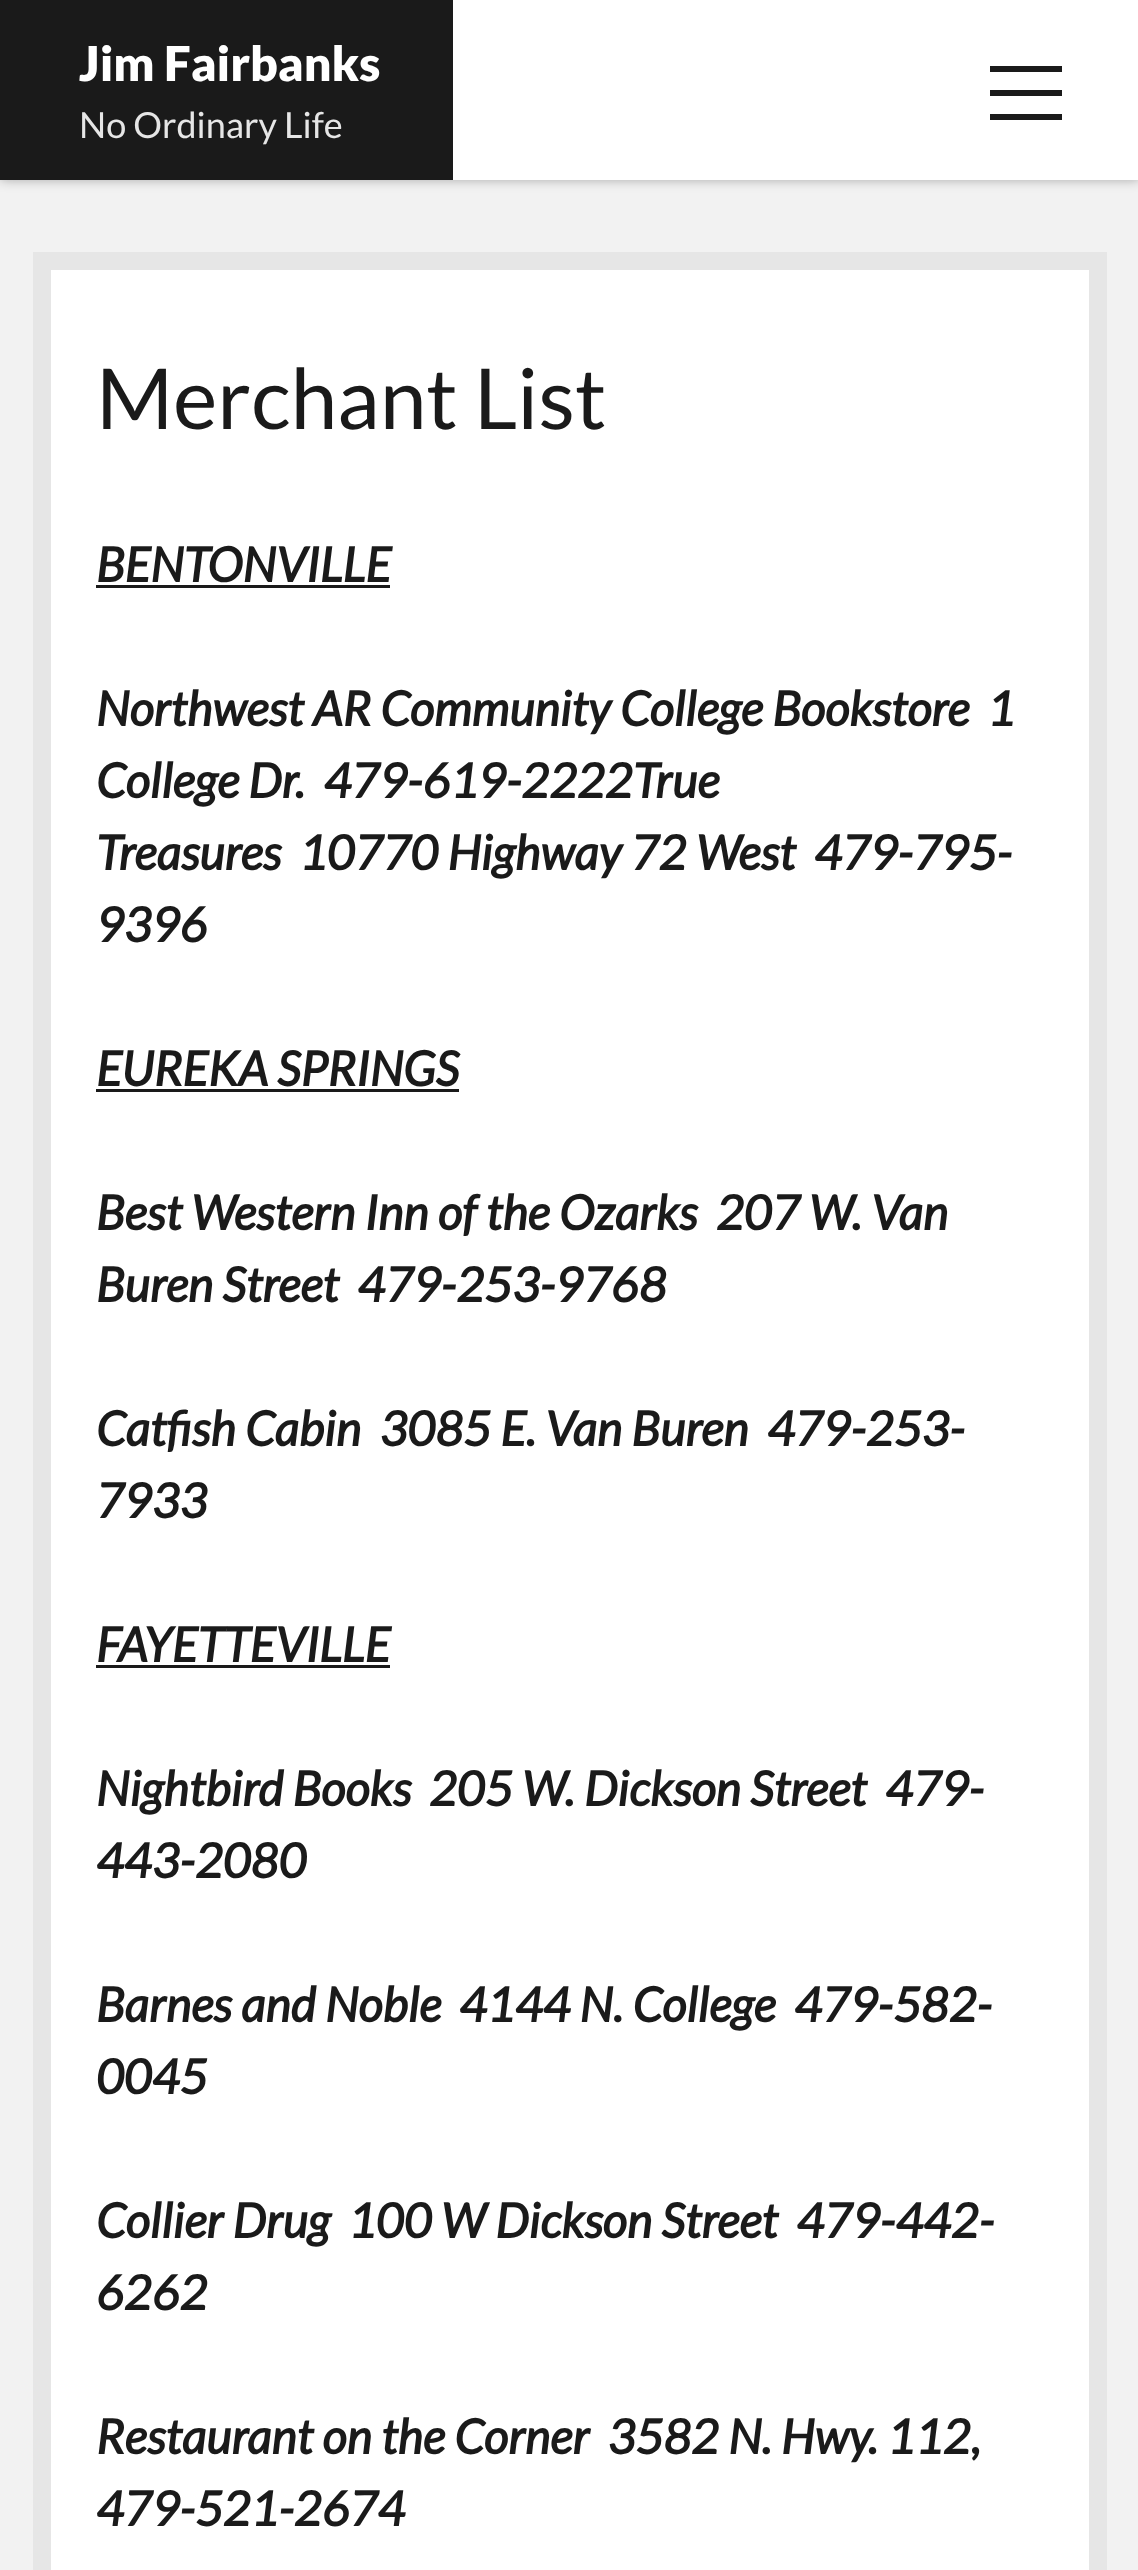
<svg xmlns="http://www.w3.org/2000/svg" width="1138" height="2570" viewBox="0 0 1138 2570">
  <defs>
    <filter id="blur1" x="-50%" y="-200%" width="200%" height="500%"><feGaussianBlur stdDeviation="6"/></filter>
  </defs>
  <rect width="100%" height="100%" fill="#f2f2f2"/>
  <rect x="0" y="0" width="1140" height="180" fill="#000000" fill-opacity="0.3" filter="url(#blur1)"/>
  <rect x="453" y="0" width="685" height="180" fill="#ffffff"/>
  <rect x="0" y="0" width="453" height="180" fill="#1a1a1a"/>
  <text x="79" y="81" font-family="Lato" font-size="48" font-weight="900" fill="#ffffff">Jim Fairbanks</text>
  <text x="79" y="138" font-family="Lato" font-size="36" fill="#e6e6e6">No Ordinary Life</text>
  <rect x="990" y="114" width="72" height="6" fill="#1a1a1a"/>
  <rect x="990" y="90" width="72" height="6" fill="#1a1a1a"/>
  <rect x="990" y="66" width="72" height="6" fill="#1a1a1a"/>
  <rect x="42" y="261" width="1056" height="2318" fill="#ffffff" stroke="#e6e6e6" stroke-width="18"/>
  <text x="96" y="429" font-family="Lato" font-size="84" fill="#1a1a1a">Merchant List</text>
  <text x="96" y="582" font-family="Lato" font-size="48" font-weight="bold" font-style="italic" fill="#1a1a1a">BENTONVILLE</text>
  <rect x="96" y="585" width="294" height="3" fill="#1a1a1a"/>
  <text x="96" y="726" font-family="Lato" font-size="48" font-weight="bold" font-style="italic" fill="#1a1a1a">Northwest AR Community College Bookstore</text>
  <text x="987" y="726" font-family="Lato" font-size="48" font-weight="bold" font-style="italic" fill="#1a1a1a">1</text>
  <text x="96" y="798" font-family="Lato" font-size="48" font-weight="bold" font-style="italic" fill="#1a1a1a" xml:space="preserve">College Dr.  479-619-2222True</text>
  <text x="96" y="870" font-family="Lato" font-size="48" font-weight="bold" font-style="italic" fill="#1a1a1a">Treasures</text>
  <text x="299" y="870" font-family="Lato" font-size="48" font-weight="bold" font-style="italic" fill="#1a1a1a" xml:space="preserve">10770 Highway 72 West  479-795-</text>
  <text x="96" y="942" font-family="Lato" font-size="48" font-weight="bold" font-style="italic" fill="#1a1a1a">9396</text>
  <text x="96" y="1086" font-family="Lato" font-size="48" font-weight="bold" font-style="italic" fill="#1a1a1a">EUREKA SPRINGS</text>
  <rect x="96" y="1089" width="363" height="3" fill="#1a1a1a"/>
  <text x="96" y="1230" font-family="Lato" font-size="48" font-weight="bold" font-style="italic" fill="#1a1a1a">Best Western Inn of the Ozarks</text>
  <text x="716" y="1230" font-family="Lato" font-size="48" font-weight="bold" font-style="italic" fill="#1a1a1a">207 W. Van</text>
  <text x="96" y="1302" font-family="Lato" font-size="48" font-weight="bold" font-style="italic" fill="#1a1a1a" xml:space="preserve">Buren Street  479-253-9768</text>
  <text x="96" y="1446" font-family="Lato" font-size="48" font-weight="bold" font-style="italic" fill="#1a1a1a" xml:space="preserve">Catfish Cabin  3085 E. Van Buren  479-253-</text>
  <text x="96" y="1518" font-family="Lato" font-size="48" font-weight="bold" font-style="italic" fill="#1a1a1a">7933</text>
  <text x="96" y="1662" font-family="Lato" font-size="48" font-weight="bold" font-style="italic" fill="#1a1a1a">FAYETTEVILLE</text>
  <rect x="96" y="1665" width="294" height="3" fill="#1a1a1a"/>
  <text x="96" y="1806" font-family="Lato" font-size="48" font-weight="bold" font-style="italic" fill="#1a1a1a">Nightbird Books</text>
  <text x="429" y="1806" font-family="Lato" font-size="48" font-weight="bold" font-style="italic" fill="#1a1a1a" xml:space="preserve">205 W. Dickson Street  479-</text>
  <text x="96" y="1878" font-family="Lato" font-size="48" font-weight="bold" font-style="italic" fill="#1a1a1a">443-2080</text>
  <text x="96" y="2022" font-family="Lato" font-size="48" font-weight="bold" font-style="italic" fill="#1a1a1a">Barnes and Noble</text>
  <text x="459" y="2022" font-family="Lato" font-size="48" font-weight="bold" font-style="italic" fill="#1a1a1a" xml:space="preserve">4144 N. College  479-582-</text>
  <text x="96" y="2094" font-family="Lato" font-size="48" font-weight="bold" font-style="italic" fill="#1a1a1a">0045</text>
  <text x="96" y="2238" font-family="Lato" font-size="48" font-weight="bold" font-style="italic" fill="#1a1a1a">Collier Drug</text>
  <text x="348" y="2238" font-family="Lato" font-size="48" font-weight="bold" font-style="italic" fill="#1a1a1a" xml:space="preserve">100 W Dickson Street  479-442-</text>
  <text x="96" y="2310" font-family="Lato" font-size="48" font-weight="bold" font-style="italic" fill="#1a1a1a">6262</text>
  <text x="96" y="2454" font-family="Lato" font-size="48" font-weight="bold" font-style="italic" fill="#1a1a1a" xml:space="preserve">Restaurant on the Corner  3582 N. Hwy. 112,</text>
  <text x="96" y="2526" font-family="Lato" font-size="48" font-weight="bold" font-style="italic" fill="#1a1a1a">479-521-2674</text>
</svg>
